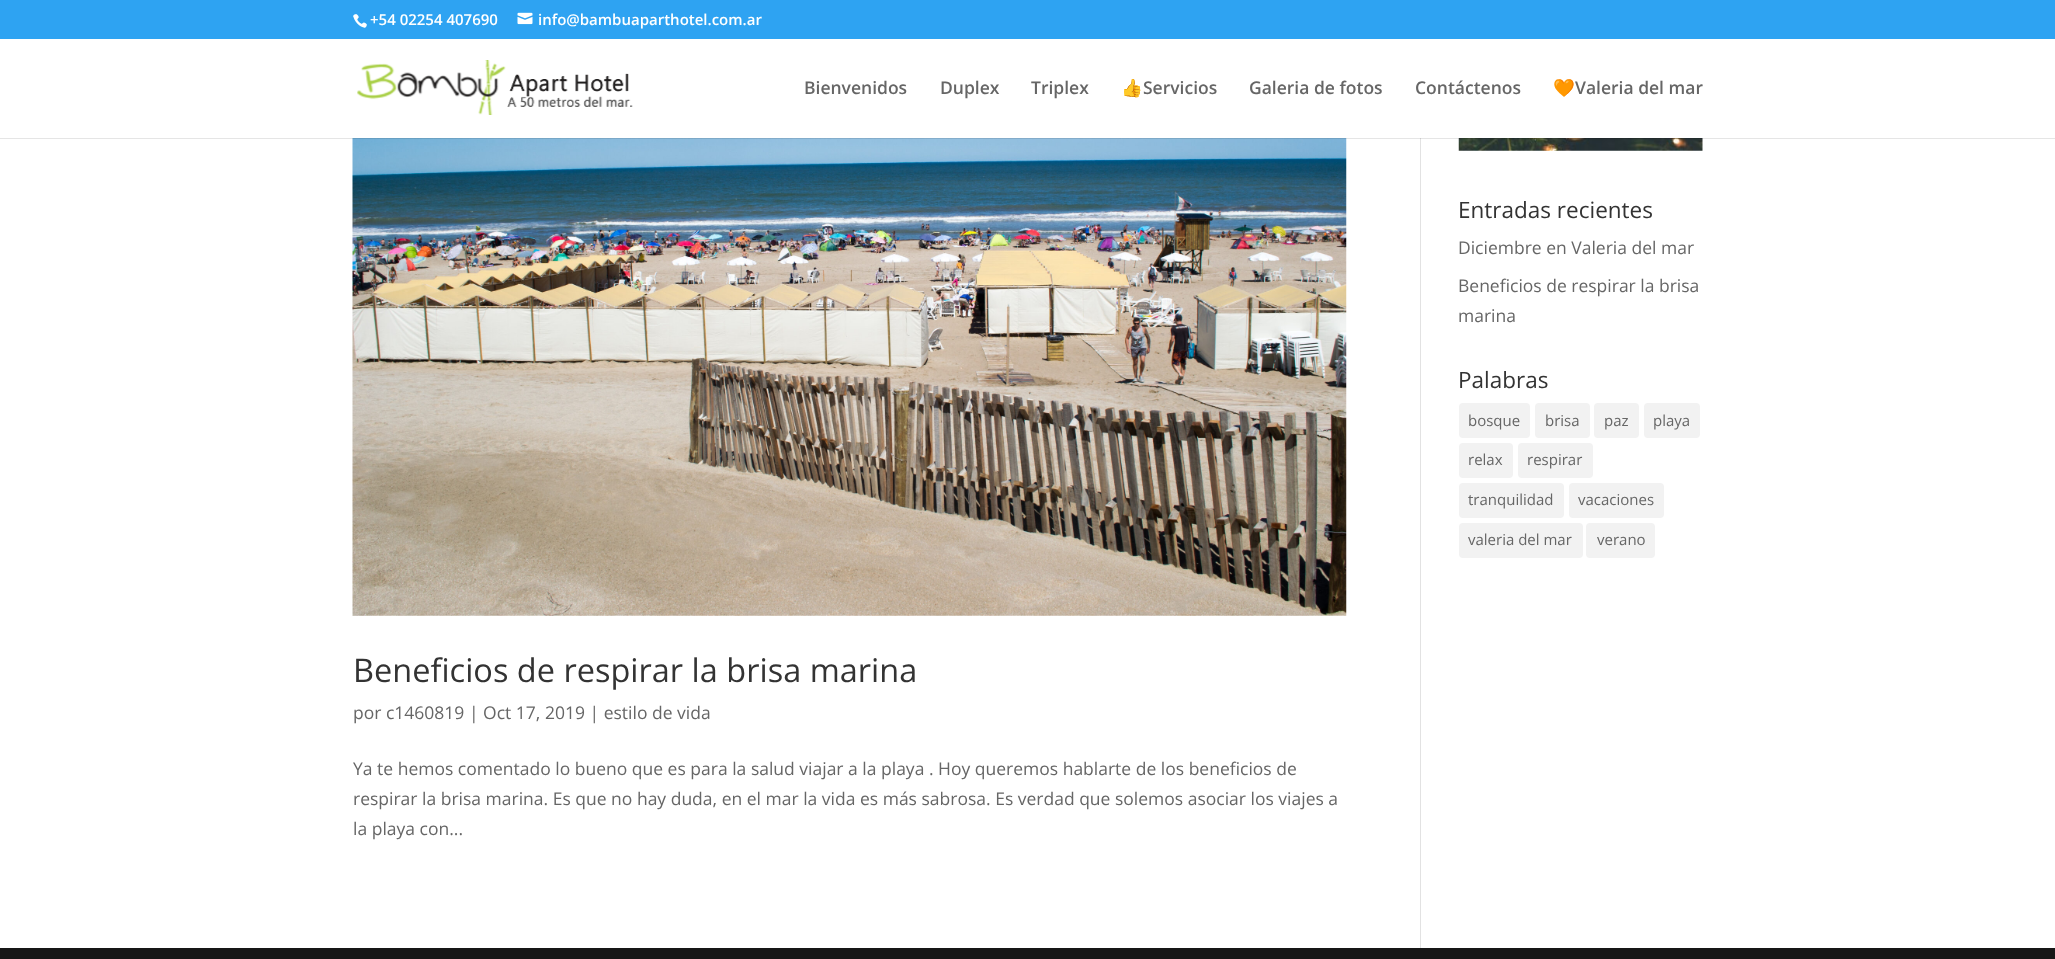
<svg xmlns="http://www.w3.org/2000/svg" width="2055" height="959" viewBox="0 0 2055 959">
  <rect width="100%" height="100%" fill="#ffffff"/>
  <rect x="0" y="0" width="2055" height="39" fill="#2ea3f2"/>
  <image x="353" y="14" width="14" height="14" href="img1.png"/>
  <text x="370" y="25" font-family="Open Sans" font-size="15" font-weight="600" fill="#ffffff">+54 02254 407690</text>
  <image x="517" y="12" width="16" height="13" href="img2.png"/>
  <text x="538" y="25" font-family="Open Sans" font-size="15" font-weight="600" fill="#ffffff">info@bambuaparthotel.com.ar</text>
  <rect x="1420" y="138" width="1" height="810" fill="#e2e2e2"/>
  <image x="1458" y="138" width="245" height="13" href="img4.png"/>
  <image x="352" y="138" width="995" height="478" href="img5.png"/>
  <rect x="0" y="138" width="2055" height="1" fill="#000000" fill-opacity="0.1"/>
  <image x="357" y="60" width="276" height="55" href="img3.png"/>
  <text x="804" y="94" font-family="Open Sans" font-size="17.5" font-weight="600" fill="#666666">Bienvenidos</text>
  <text x="940" y="94" font-family="Open Sans" font-size="17.5" font-weight="600" fill="#666666">Duplex</text>
  <text x="1031" y="94" font-family="Open Sans" font-size="17.5" font-weight="600" fill="#666666">Triplex</text>
  <text x="1121" y="94" font-family="Noto Color Emoji" font-size="17.5" font-weight="bold" fill="#666666">👍</text>
  <text x="1143" y="94" font-family="Open Sans" font-size="17.5" font-weight="600" fill="#666666">Servicios</text>
  <text x="1249" y="94" font-family="Open Sans" font-size="17.5" font-weight="600" fill="#666666">Galeria de fotos</text>
  <text x="1415" y="94" font-family="Open Sans" font-size="17.5" font-weight="600" fill="#666666">Contáctenos</text>
  <text x="1553" y="94" font-family="Noto Color Emoji" font-size="17.5" font-weight="bold" fill="#666666">🧡</text>
  <text x="1575" y="94" font-family="Open Sans" font-size="17.5" font-weight="600" fill="#666666">Valeria del mar</text>
  <text x="1458" y="218" font-family="Open Sans" font-size="22.5" fill="#333333">Entradas recientes</text>
  <text x="1458" y="254" font-family="Open Sans" font-size="17.5" fill="#666666">Diciembre en Valeria del mar</text>
  <text x="1458" y="292" font-family="Open Sans" font-size="17.5" fill="#666666">Beneficios de respirar la brisa</text>
  <text x="1458" y="322" font-family="Open Sans" font-size="17.5" fill="#666666">marina</text>
  <text x="1458" y="388" font-family="Open Sans" font-size="22.5" fill="#333333">Palabras</text>
  <rect x="1459" y="403" width="71" height="35" rx="4" fill="#f2f2f2"/>
  <text x="1468" y="426" font-family="Open Sans" font-size="15" fill="#666666">bosque</text>
  <rect x="1535" y="403" width="55" height="35" rx="4" fill="#f2f2f2"/>
  <text x="1545" y="426" font-family="Open Sans" font-size="15" fill="#666666">brisa</text>
  <rect x="1594" y="403" width="45" height="35" rx="4" fill="#f2f2f2"/>
  <text x="1604" y="426" font-family="Open Sans" font-size="15" fill="#666666">paz</text>
  <rect x="1644" y="403" width="56" height="35" rx="4" fill="#f2f2f2"/>
  <text x="1653" y="426" font-family="Open Sans" font-size="15" fill="#666666">playa</text>
  <rect x="1459" y="443" width="54" height="35" rx="4" fill="#f2f2f2"/>
  <text x="1468" y="465" font-family="Open Sans" font-size="15" fill="#666666">relax</text>
  <rect x="1518" y="443" width="75" height="35" rx="4" fill="#f2f2f2"/>
  <text x="1527" y="465" font-family="Open Sans" font-size="15" fill="#666666">respirar</text>
  <rect x="1459" y="483" width="105" height="35" rx="4" fill="#f2f2f2"/>
  <text x="1468" y="505" font-family="Open Sans" font-size="15" fill="#666666">tranquilidad</text>
  <rect x="1569" y="483" width="95" height="35" rx="4" fill="#f2f2f2"/>
  <text x="1578" y="505" font-family="Open Sans" font-size="15" fill="#666666">vacaciones</text>
  <rect x="1459" y="523" width="124" height="35" rx="4" fill="#f2f2f2"/>
  <text x="1468" y="545" font-family="Open Sans" font-size="15" fill="#666666">valeria del mar</text>
  <rect x="1586" y="523" width="69" height="35" rx="4" fill="#f2f2f2"/>
  <text x="1597" y="545" font-family="Open Sans" font-size="15" fill="#666666">verano</text>
  <text x="353" y="682" font-family="Open Sans" font-size="32.5" fill="#333333">Beneficios de respirar la brisa marina</text>
  <text x="353" y="719" font-family="Open Sans" font-size="17.5" fill="#666666">por c1460819 | Oct 17, 2019 | estilo de vida</text>
  <text x="353" y="775" font-family="Open Sans" font-size="17.5" fill="#666666">Ya te hemos comentado lo bueno que es para la salud viajar a la playa . Hoy queremos hablarte de los beneficios de</text>
  <text x="353" y="805" font-family="Open Sans" font-size="17.5" fill="#666666">respirar la brisa marina. Es que no hay duda, en el mar la vida es más sabrosa. Es verdad que solemos asociar los viajes a</text>
  <text x="353" y="835" font-family="Open Sans" font-size="17.5" fill="#666666">la playa con...</text>
  <rect x="0" y="948" width="2055" height="11" fill="#171717"/>
</svg>
